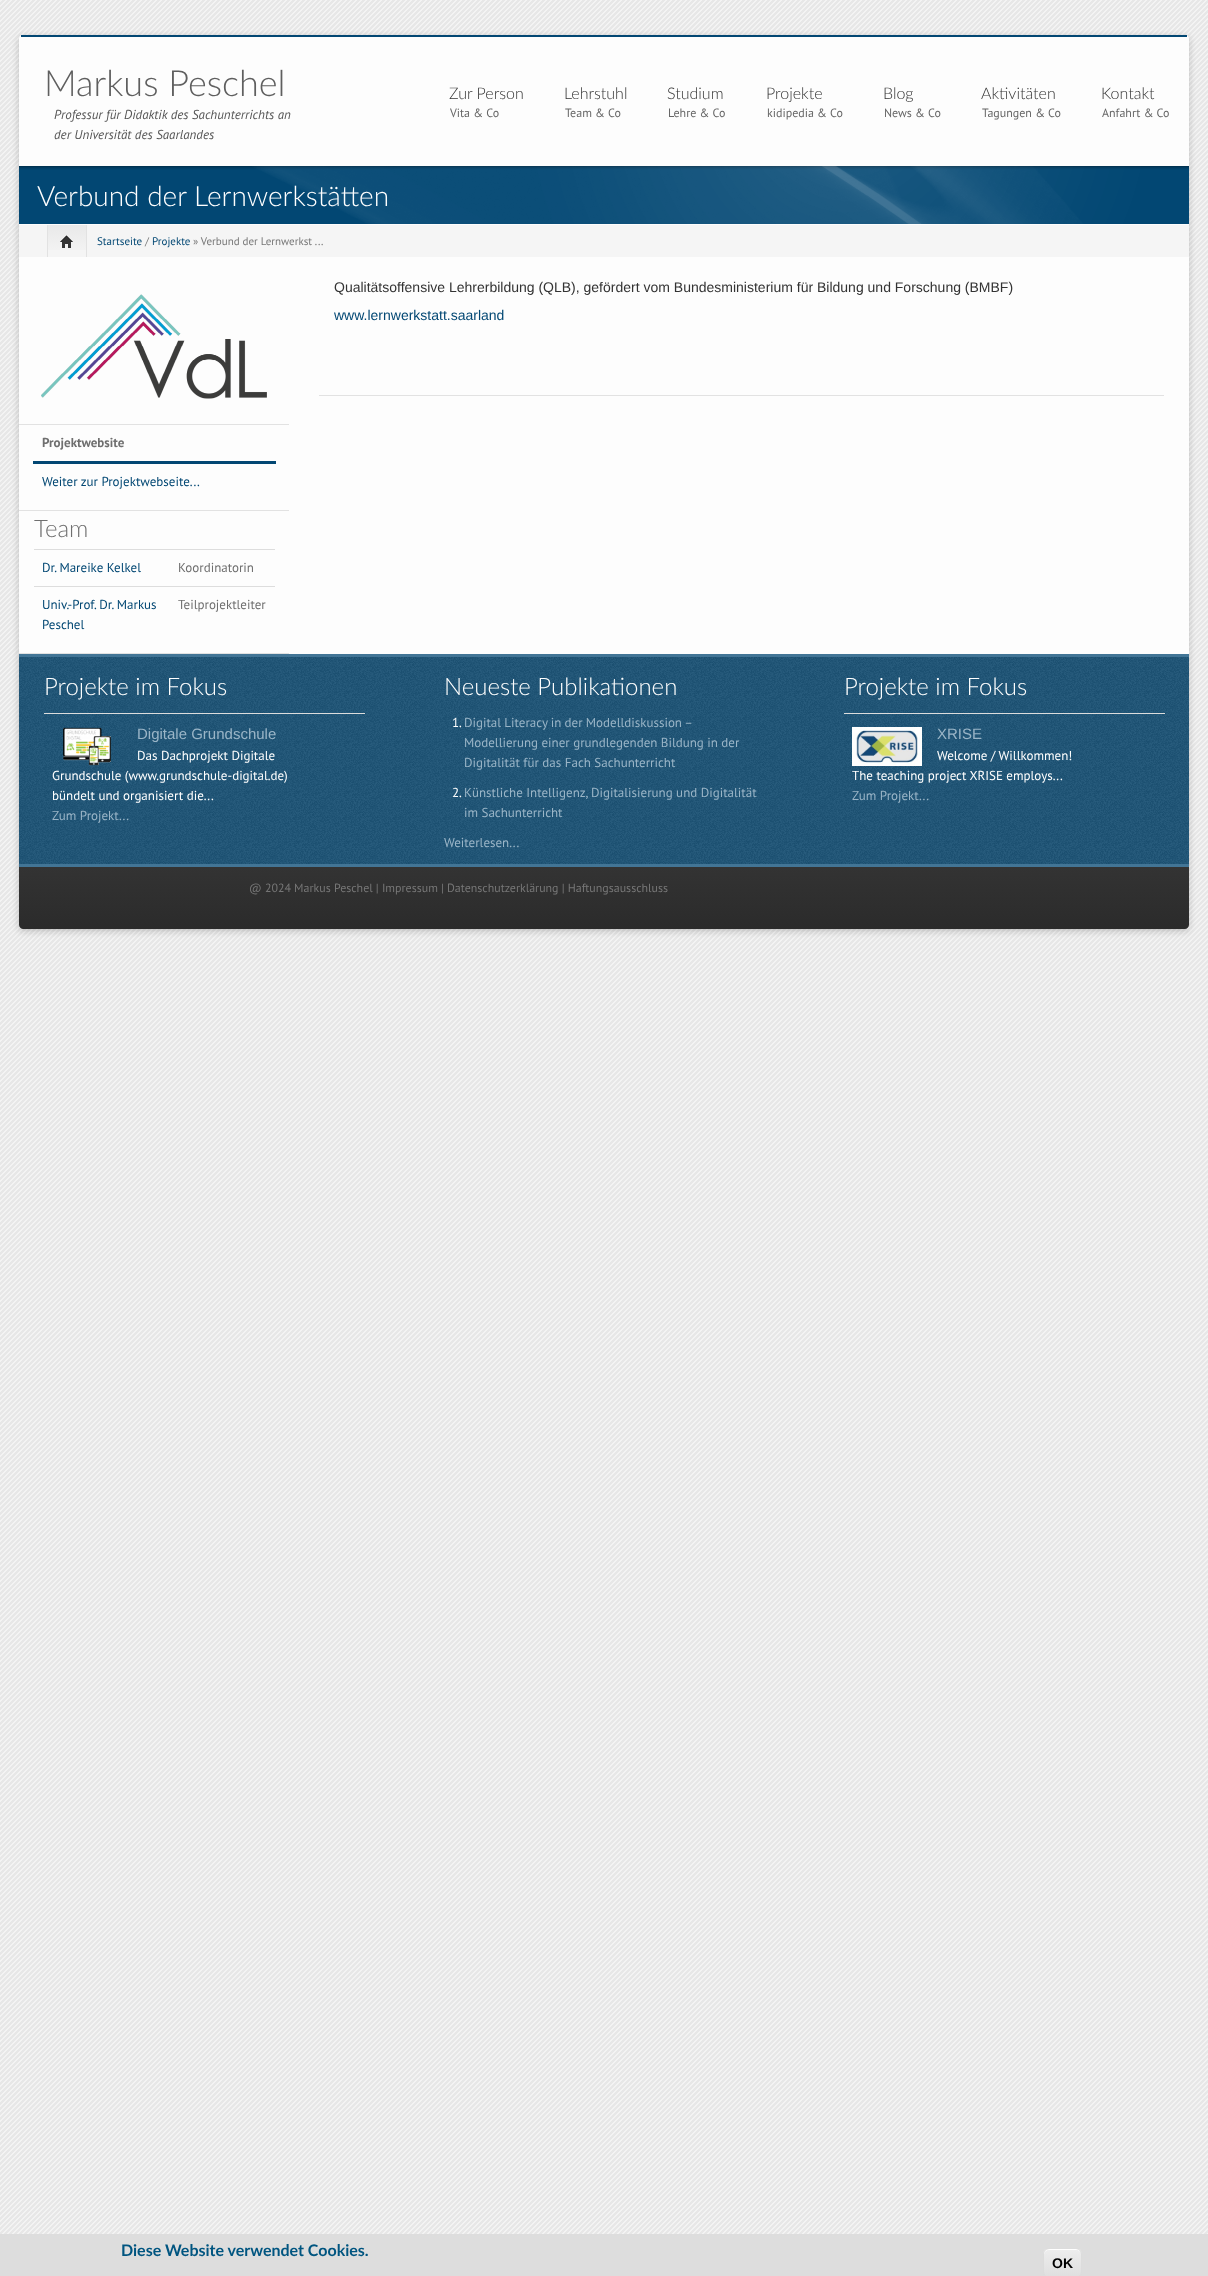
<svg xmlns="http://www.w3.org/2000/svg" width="1208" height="2276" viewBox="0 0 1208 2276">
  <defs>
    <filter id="blur1" x="-50%" y="-200%" width="200%" height="500%"><feGaussianBlur stdDeviation="3"/></filter>
    <linearGradient id="g1" gradientUnits="userSpaceOnUse" x1="67" y1="225" x2="67" y2="257"><stop offset="0" stop-color="#e9e9e9"/><stop offset="1" stop-color="#f5f5f5"/></linearGradient>
    <linearGradient id="g2" gradientUnits="userSpaceOnUse" x1="604" y1="867" x2="604" y2="929"><stop offset="0" stop-color="#333333"/><stop offset="1" stop-color="#2b2b2b"/></linearGradient>
    <clipPath id="clip1"><rect x="1043" y="2248" width="39" height="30" rx="6"/></clipPath>
    <linearGradient id="g3" gradientUnits="userSpaceOnUse" x1="1063" y1="2249" x2="1063" y2="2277"><stop offset="0.05" stop-color="#ededed"/><stop offset="1" stop-color="#dfdfdf"/></linearGradient>
  </defs>
  <rect width="100%" height="100%" fill="#ffffff"/>
  <image x="0" y="0" width="1208" height="2234" href="img1.png"/>
  <rect x="19" y="37" width="1170" height="894" rx="4" fill="#323232" fill-opacity="0.25" filter="url(#blur1)"/>
  <rect x="19" y="35" width="1170" height="894" rx="4" fill="#fdfdfd"/>
  <rect x="21" y="35" width="1166" height="2" fill="#024773"/>
  <text x="44" y="96" font-family="Lato" font-size="36" font-weight="300" fill="#5f5f5f">Markus Peschel</text>
  <text x="54" y="119" font-family="PT Sans" font-size="13" font-style="italic" fill="#555555">Professur für Didaktik des Sachunterrichts an</text>
  <text x="54" y="139" font-family="PT Sans" font-size="13" font-style="italic" fill="#555555">der Universität des Saarlandes</text>
  <text x="449" y="99" font-family="Lato" font-size="16" font-weight="300" fill="#333333">Zur Person</text>
  <text x="450" y="117" font-family="PT Sans" font-size="12" fill="#666666">Vita &amp; Co</text>
  <text x="564" y="99" font-family="Lato" font-size="16" font-weight="300" fill="#333333">Lehrstuhl</text>
  <text x="565" y="117" font-family="PT Sans" font-size="12" fill="#666666">Team &amp; Co</text>
  <text x="667" y="99" font-family="Lato" font-size="16" font-weight="300" fill="#333333">Studium</text>
  <text x="668" y="117" font-family="PT Sans" font-size="12" fill="#666666">Lehre &amp; Co</text>
  <text x="766" y="99" font-family="Lato" font-size="16" font-weight="300" fill="#333333">Projekte</text>
  <text x="767" y="117" font-family="PT Sans" font-size="12" fill="#666666">kidipedia &amp; Co</text>
  <text x="883" y="99" font-family="Lato" font-size="16" font-weight="300" fill="#333333">Blog</text>
  <text x="884" y="117" font-family="PT Sans" font-size="12" fill="#666666">News &amp; Co</text>
  <text x="981" y="99" font-family="Lato" font-size="16" font-weight="300" fill="#333333">Aktivitäten</text>
  <text x="982" y="117" font-family="PT Sans" font-size="12" fill="#666666">Tagungen &amp; Co</text>
  <text x="1101" y="99" font-family="Lato" font-size="16" font-weight="300" fill="#333333">Kontakt</text>
  <text x="1102" y="117" font-family="PT Sans" font-size="12" fill="#666666">Anfahrt &amp; Co</text>
  <rect x="19" y="166" width="1170" height="58" fill="#024773"/>
  <image x="19" y="166" width="1170" height="58" href="img2.png"/>
  <text x="37" y="206" font-family="Lato" font-size="28" font-weight="300" fill="#ffffff">Verbund der Lernwerkstätten</text>
  <rect x="19" y="225" width="1170" height="32" fill="#f5f5f5"/>
  <rect x="48" y="225" width="38" height="25" fill="url(#g1)"/>
  <rect x="86" y="225" width="1" height="32" fill="#e2e2e2"/>
  <rect x="47" y="225" width="1" height="32" fill="#e2e2e2"/>
  <image x="60" y="235" width="13" height="13" href="img3.png"/>
  <text x="97" y="245" font-family="PT Sans" font-size="11" fill="#024773">Startseite</text>
  <text x="145" y="245" font-family="PT Sans" font-size="11" fill="#777777">/</text>
  <text x="152" y="245" font-family="PT Sans" font-size="11" fill="#024773">Projekte</text>
  <text x="193" y="245" font-family="PT Sans" font-size="11" fill="#777777">» Verbund der Lernwerkst ...</text>
  <rect x="319" y="395" width="845" height="1" fill="#e2e2e2"/>
  <text x="334" y="292" font-family="Liberation Sans" font-size="14" fill="#333333">Qualitätsoffensive Lehrerbildung (QLB), gefördert vom Bundesministerium für Bildung und Forschung (BMBF)</text>
  <text x="334" y="320" font-family="Liberation Sans" font-size="14" fill="#024773">www.lernwerkstatt.saarland</text>
  <rect x="19" y="424" width="270" height="1" fill="#e2e2e2"/>
  <image x="41" y="294" width="226" height="105" href="img4.png"/>
  <rect x="19" y="510" width="270" height="1" fill="#e2e2e2"/>
  <rect x="33" y="461" width="243" height="3" fill="#024773"/>
  <text x="42" y="447" font-family="PT Sans" font-size="13" font-weight="bold" fill="#6f6f6f">Projektwebsite</text>
  <text x="42" y="486" font-family="PT Sans" font-size="13" fill="#024773">Weiter zur Projektwebseite...</text>
  <rect x="19" y="653" width="270" height="1" fill="#e2e2e2"/>
  <text x="34" y="537" font-family="Lato" font-size="24" font-weight="300" fill="#6f6f6f">Team</text>
  <text x="42" y="572" font-family="PT Sans" font-size="13" fill="#024773">Dr. Mareike Kelkel</text>
  <rect x="34" y="549" width="241" height="1" fill="#dddddd"/>
  <text x="178" y="572" font-family="PT Sans" font-size="13" fill="#6f6f6f">Koordinatorin</text>
  <text x="42" y="609" font-family="PT Sans" font-size="13" fill="#024773">Univ.-Prof. Dr. Markus</text>
  <text x="42" y="629" font-family="PT Sans" font-size="13" fill="#024773">Peschel</text>
  <rect x="34" y="586" width="241" height="1" fill="#dddddd"/>
  <text x="178" y="609" font-family="PT Sans" font-size="13" fill="#6f6f6f">Teilprojektleiter</text>
  <rect x="19" y="657" width="1170" height="207" fill="#024773"/>
  <image x="19" y="657" width="1170" height="207" href="img5.png"/>
  <rect x="19" y="654" width="1170" height="3" fill="#427596"/>
  <rect x="19" y="864" width="1170" height="3" fill="#427596"/>
  <text x="44" y="695" font-family="Lato" font-size="24" font-weight="300" fill="#ffffff">Projekte im Fokus</text>
  <rect x="44" y="713" width="321" height="1" fill="#dddddd"/>
  <image x="63" y="727" width="48" height="39" href="img6.png"/>
  <text x="137" y="739" font-family="Liberation Sans" font-size="15" fill="#9ab5c7">Digitale Grundschule</text>
  <text x="137" y="760" font-family="PT Sans" font-size="13" fill="#ffffff">Das Dachprojekt Digitale</text>
  <text x="52" y="780" font-family="PT Sans" font-size="13" fill="#ffffff">Grundschule (www.grundschule-digital.de)</text>
  <text x="52" y="800" font-family="PT Sans" font-size="13" fill="#ffffff">bündelt und organisiert die...</text>
  <text x="52" y="820" font-family="PT Sans" font-size="13" fill="#9ab5c7">Zum Projekt...</text>
  <text x="444" y="695" font-family="Lato" font-size="24" font-weight="300" fill="#ffffff">Neueste Publikationen</text>
  <text x="452" y="727" font-family="PT Sans" font-size="13" fill="#ffffff">1.</text>
  <text x="464" y="727" word-spacing="-0.25" font-family="PT Sans" font-size="13" fill="#9ab5c7">Digital Literacy in der Modelldiskussion –</text>
  <text x="464" y="747" font-family="PT Sans" font-size="13" fill="#9ab5c7">Modellierung einer grundlegenden Bildung in der</text>
  <text x="464" y="767" font-family="PT Sans" font-size="13" fill="#9ab5c7">Digitalität für das Fach Sachunterricht</text>
  <text x="452" y="797" font-family="PT Sans" font-size="13" fill="#ffffff">2.</text>
  <text x="464" y="797" font-family="PT Sans" font-size="13" fill="#9ab5c7">Künstliche Intelligenz, Digitalisierung und Digitalität</text>
  <text x="464" y="817" font-family="PT Sans" font-size="13" fill="#9ab5c7">im Sachunterricht</text>
  <text x="444" y="847" font-family="PT Sans" font-size="13" fill="#9ab5c7">Weiterlesen...</text>
  <text x="844" y="695" font-family="Lato" font-size="24" font-weight="300" fill="#ffffff">Projekte im Fokus</text>
  <rect x="844" y="713" width="321" height="1" fill="#dddddd"/>
  <image x="852" y="727" width="70" height="39" href="img7.png"/>
  <text x="937" y="739" font-family="Liberation Sans" font-size="15" fill="#9ab5c7">XRISE</text>
  <text x="937" y="760" font-family="PT Sans" font-size="13" fill="#ffffff">Welcome / Willkommen!</text>
  <text x="852" y="780" font-family="PT Sans" font-size="13" fill="#ffffff">The teaching project XRISE employs...</text>
  <text x="852" y="800" font-family="PT Sans" font-size="13" fill="#9ab5c7">Zum Projekt...</text>
  <path d="M19 867H1189V925C1189 927 1187 929 1185 929H23C21 929 19 927 19 925Z" fill="url(#g2)"/>
  <text x="249" y="892" font-family="PT Sans" font-size="11.95" fill="#777777">@ 2024 Markus Peschel | Impressum | Datenschutzerklärung | Haftungsausschluss</text>
  <rect x="0" y="2234" width="1208" height="42" fill="#dddddd"/>
  <text x="121" y="2256" font-family="Lato" font-size="16" font-weight="bold" fill="#005580">Diese Website verwendet Cookies.</text>
  <g clip-path="url(#clip1)">
    <rect x="1043" y="2249" width="39" height="27" fill="url(#g3)"/>
  </g>
  <path d="M1049 2250H1076C1080 2250 1081 2252.5 1081 2256C1081 2249 1077.5 2249 1071.5 2249H1053.5C1048.5 2249 1044 2248.5 1044 2254.5C1044.5 2252 1046 2250 1049 2250Z" fill="#ffffff"/>
  <rect x="1043.5" y="2248.5" width="38" height="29" rx="5.5" fill="none" stroke="#dcdcdc"/>
  <text x="1052" y="2268" font-family="Liberation Sans" font-size="14" font-weight="bold" fill="#000000">OK</text>
</svg>
